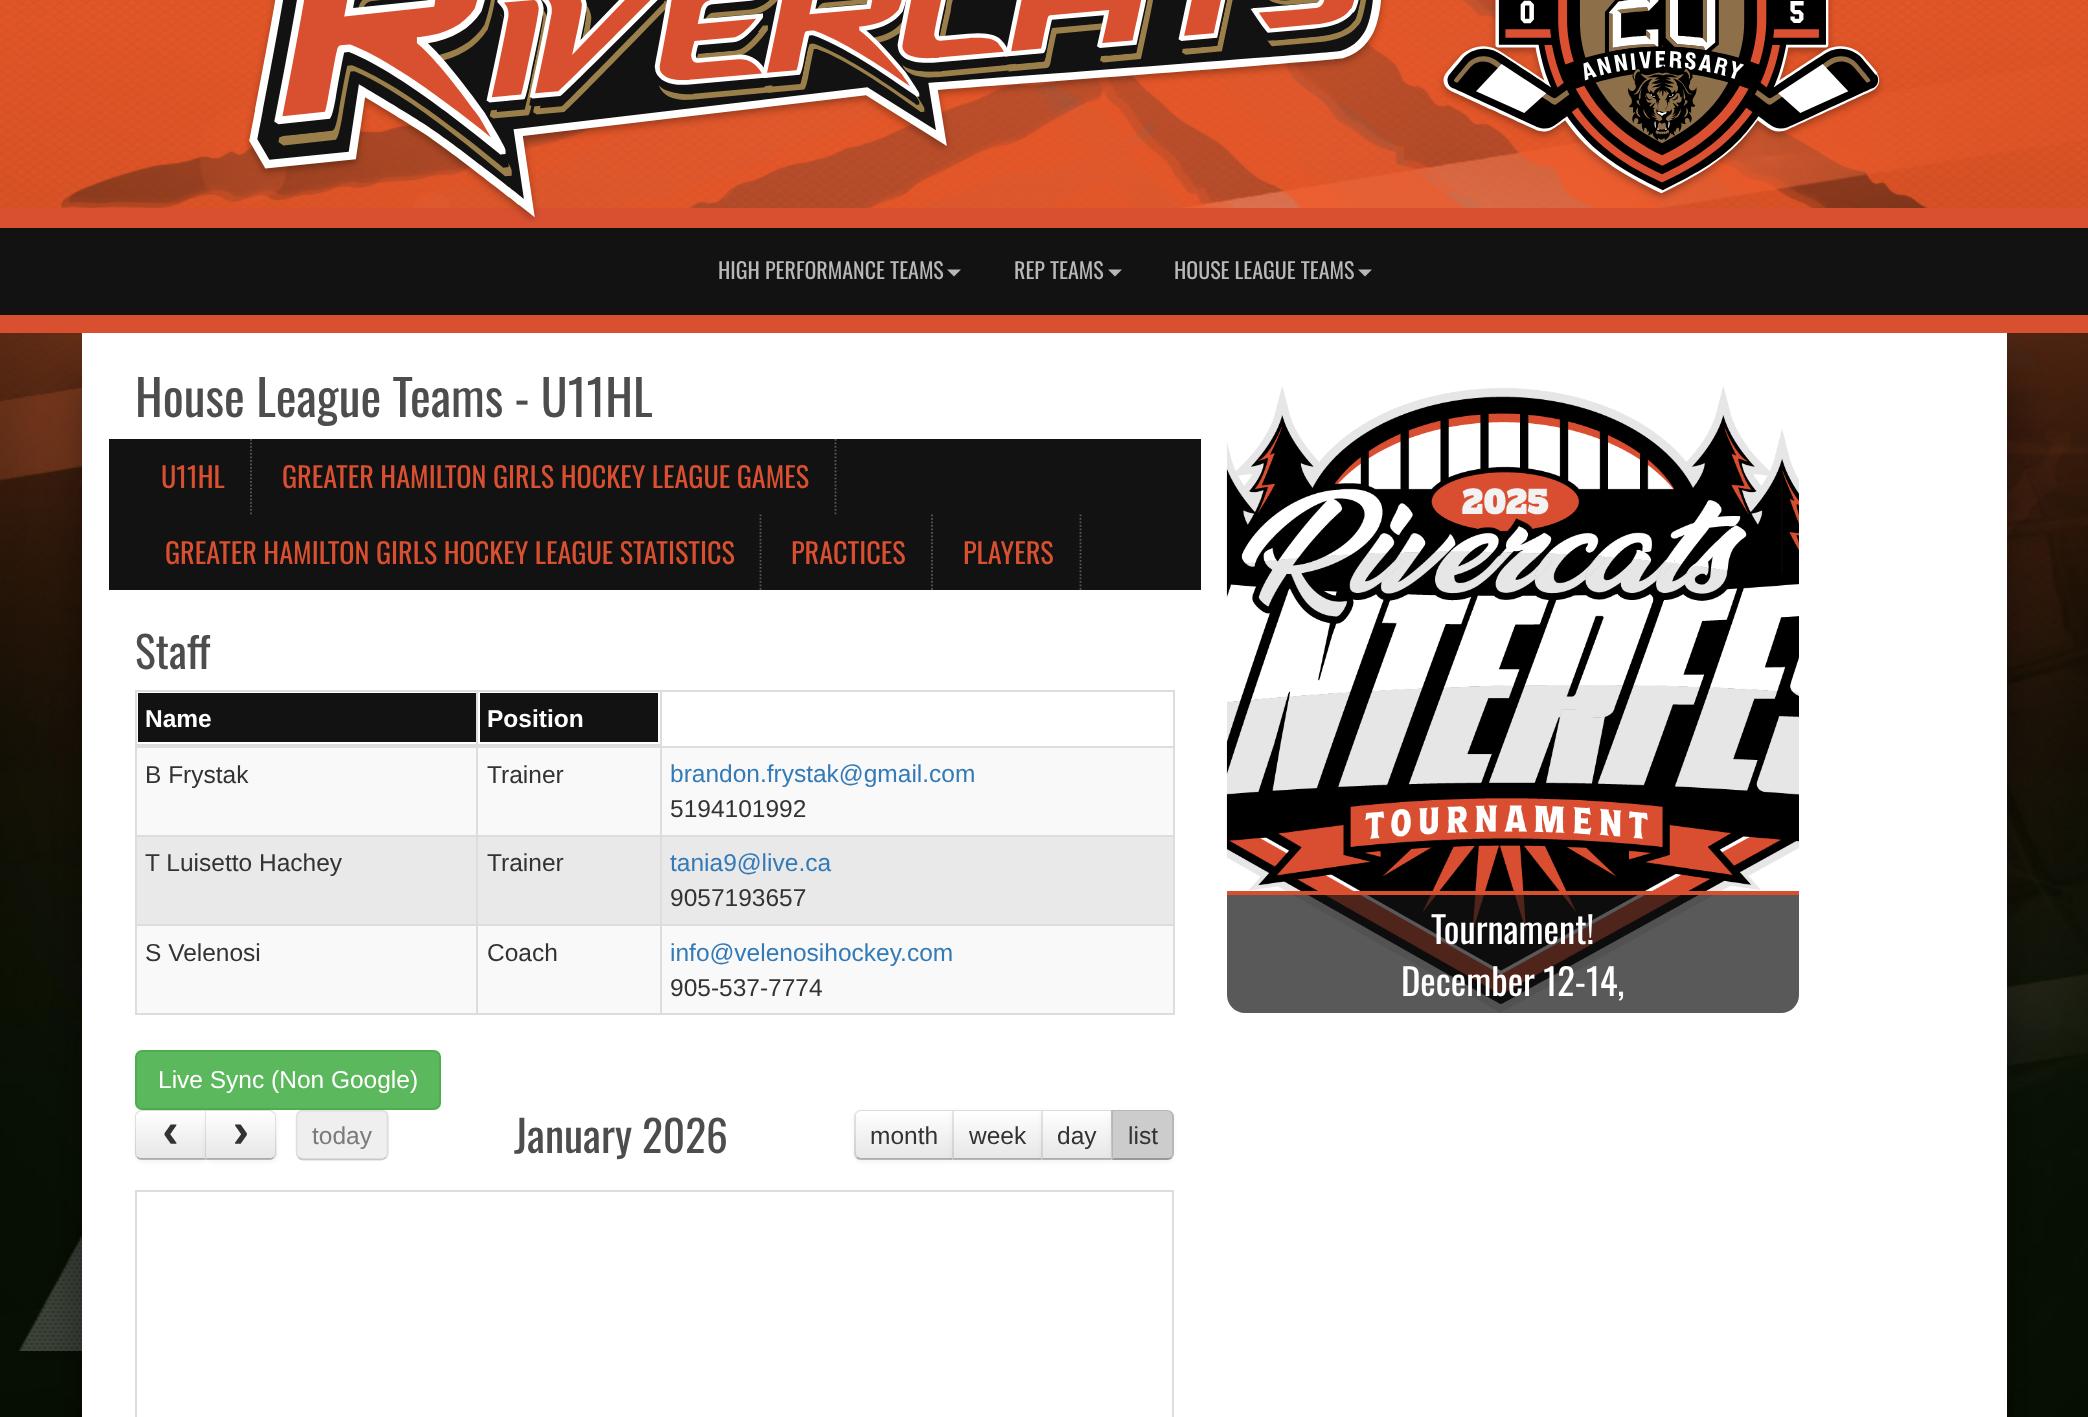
<svg xmlns="http://www.w3.org/2000/svg" width="2088" height="1417" viewBox="0 0 2088 1417">
  <defs>
    <filter id="blur1" x="-50%" y="-200%" width="200%" height="500%"><feGaussianBlur stdDeviation="22"/></filter>
    <filter id="blur2" x="-50%" y="-200%" width="200%" height="500%"><feGaussianBlur stdDeviation="2"/></filter>
    <clipPath id="clip1"><path d="M142 1110H207V1160H142C138 1160 135 1157 135 1153V1117C135 1113 138 1110 142 1110Z"/></clipPath>
    <linearGradient id="g1" gradientUnits="userSpaceOnUse" x1="171" y1="1111" x2="171" y2="1159"><stop offset="0" stop-color="#ffffff"/><stop offset="1" stop-color="#e6e6e6"/></linearGradient>
    <clipPath id="clip2"><path d="M205 1110H270C274 1110 277 1113 277 1117V1153C277 1157 274 1160 270 1160H205Z"/></clipPath>
    <linearGradient id="g2" gradientUnits="userSpaceOnUse" x1="241" y1="1111" x2="241" y2="1159"><stop offset="0" stop-color="#ffffff"/><stop offset="1" stop-color="#e6e6e6"/></linearGradient>
    <clipPath id="clip3"><path d="M861 1110H954V1160H861C857 1160 854 1157 854 1153V1117C854 1113 857 1110 861 1110Z"/></clipPath>
    <linearGradient id="g3" gradientUnits="userSpaceOnUse" x1="904" y1="1111" x2="904" y2="1159"><stop offset="0" stop-color="#ffffff"/><stop offset="1" stop-color="#e6e6e6"/></linearGradient>
    <linearGradient id="g4" gradientUnits="userSpaceOnUse" x1="998" y1="1111" x2="998" y2="1159"><stop offset="0" stop-color="#ffffff"/><stop offset="1" stop-color="#e6e6e6"/></linearGradient>
    <linearGradient id="g5" gradientUnits="userSpaceOnUse" x1="1077" y1="1111" x2="1077" y2="1159"><stop offset="0" stop-color="#ffffff"/><stop offset="1" stop-color="#e6e6e6"/></linearGradient>
  </defs>
  <rect width="100%" height="100%" fill="#ffffff"/>
  <image x="0" y="0" width="2088" height="1417" href="img1.png"/>
  <image x="0" y="0" width="2088" height="208" href="img2.png"/>
  <rect x="0" y="208" width="2088" height="20" fill="#d95031"/>
  <image x="245" y="0" width="1639" height="223" href="img3.png"/>
  <rect x="82" y="376" width="1838" height="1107" fill="#000000" fill-opacity="0.45" filter="url(#blur1)"/>
  <rect x="170" y="376" width="1837" height="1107" fill="#000000" fill-opacity="0.45" filter="url(#blur1)"/>
  <rect x="0" y="228" width="2088" height="87" fill="#121212"/>
  <text x="718" y="279" font-family="Oswald" font-size="22" fill="#b8b8b8">HIGH PERFORMANCE TEAMS</text>
  <path d="M947 269.5H961L954 276.5Z" fill="#b8b8b8"/>
  <text x="1014" y="279" font-family="Oswald" font-size="22" fill="#b8b8b8">REP TEAMS</text>
  <path d="M1108 269.5H1122L1115 276.5Z" fill="#b8b8b8"/>
  <text x="1174" y="279" font-family="Oswald" font-size="22" fill="#b8b8b8">HOUSE LEAGUE TEAMS</text>
  <path d="M1358 269.5H1372L1365 276.5Z" fill="#b8b8b8"/>
  <rect x="0" y="315" width="2088" height="18" fill="#d95031"/>
  <rect x="82" y="333" width="1925" height="1084" fill="#ffffff"/>
  <text x="135" y="417" font-family="Oswald" font-size="49.5" fill="#4d4d4d">House League Teams - U11HL</text>
  <rect x="109" y="439" width="1092" height="151" fill="#121212"/>
  <path d="M251 439V514.5" fill="none" stroke="#595959" stroke-width="1.8" stroke-dasharray="1.75 1.75"/>
  <text x="161" y="488" font-family="Oswald" font-size="28.25" fill="#d95031">U11HL</text>
  <path d="M835.5 439V514.5" fill="none" stroke="#595959" stroke-width="1.8" stroke-dasharray="1.75 1.75"/>
  <text x="282" y="488" font-family="Oswald" font-size="28.25" fill="#d95031">GREATER HAMILTON GIRLS HOCKEY LEAGUE GAMES</text>
  <path d="M760.5 514.5V590" fill="none" stroke="#595959" stroke-width="1.8" stroke-dasharray="1.75 1.75"/>
  <text x="165" y="564" font-family="Oswald" font-size="28.25" fill="#d95031">GREATER HAMILTON GIRLS HOCKEY LEAGUE STATISTICS</text>
  <path d="M932 514.5V590" fill="none" stroke="#595959" stroke-width="1.8" stroke-dasharray="1.75 1.75"/>
  <text x="791" y="564" font-family="Oswald" font-size="28.25" fill="#d95031">PRACTICES</text>
  <path d="M1080.5 514.5V590" fill="none" stroke="#595959" stroke-width="1.8" stroke-dasharray="1.75 1.75"/>
  <text x="963" y="564" font-family="Oswald" font-size="28.25" fill="#d95031">PLAYERS</text>
  <text x="135" y="669" font-family="Oswald" font-size="43.5" fill="#4d4d4d">Staff</text>
  <rect x="135" y="690" width="1039" height="2" fill="#dddddd"/>
  <rect x="1173" y="690" width="2" height="325" fill="#dddddd"/>
  <rect x="135" y="1013" width="1039" height="2" fill="#dddddd"/>
  <rect x="135" y="690" width="2" height="325" fill="#dddddd"/>
  <rect x="138" y="693" width="338" height="49" fill="#121212"/>
  <text x="145" y="727" font-family="Liberation Sans" font-size="24.5" font-weight="bold" fill="#ffffff">Name</text>
  <rect x="480" y="693" width="178" height="49" fill="#121212"/>
  <rect x="137" y="748" width="1036" height="87" fill="#f9f9f9"/>
  <rect x="660" y="835" width="514" height="2" fill="#dddddd"/>
  <rect x="137" y="837" width="1036" height="87" fill="#e9e9e9"/>
  <rect x="660" y="924" width="514" height="2" fill="#dddddd"/>
  <rect x="137" y="926" width="1036" height="87" fill="#f9f9f9"/>
  <rect x="660" y="924" width="2" height="91" fill="#dddddd"/>
  <rect x="476" y="924" width="186" height="2" fill="#dddddd"/>
  <rect x="660" y="835" width="2" height="91" fill="#dddddd"/>
  <rect x="476" y="835" width="186" height="2" fill="#dddddd"/>
  <rect x="476" y="924" width="2" height="91" fill="#dddddd"/>
  <rect x="135" y="924" width="343" height="2" fill="#dddddd"/>
  <rect x="476" y="835" width="2" height="91" fill="#dddddd"/>
  <rect x="135" y="835" width="343" height="2" fill="#dddddd"/>
  <rect x="476" y="690" width="2" height="147" fill="#dddddd"/>
  <rect x="660" y="746" width="514" height="2" fill="#dddddd"/>
  <rect x="660" y="690" width="2" height="147" fill="#dddddd"/>
  <rect x="135" y="744" width="527" height="4" fill="#dddddd"/>
  <text x="487" y="727" font-family="Liberation Sans" font-size="24.5" font-weight="bold" fill="#ffffff">Position</text>
  <text x="145" y="783" font-family="Liberation Sans" font-size="24.5" fill="#333333">B Frystak</text>
  <text x="487" y="783" font-family="Liberation Sans" font-size="24.5" fill="#333333">Trainer</text>
  <text x="670" y="782" font-family="Liberation Sans" font-size="24.5" fill="#337ab7">brandon.frystak@gmail.com</text>
  <text x="670" y="817" font-family="Liberation Sans" font-size="24.5" fill="#333333">5194101992</text>
  <text x="145" y="871" font-family="Liberation Sans" font-size="24.5" fill="#333333">T Luisetto Hachey</text>
  <text x="487" y="871" font-family="Liberation Sans" font-size="24.5" fill="#333333">Trainer</text>
  <text x="670" y="871" font-family="Liberation Sans" font-size="24.5" fill="#337ab7">tania9@live.ca</text>
  <text x="670" y="906" font-family="Liberation Sans" font-size="24.5" fill="#333333">9057193657</text>
  <text x="145" y="961" font-family="Liberation Sans" font-size="24.5" fill="#333333">S Velenosi</text>
  <text x="487" y="961" font-family="Liberation Sans" font-size="24.5" fill="#333333">Coach</text>
  <text x="670" y="961" font-family="Liberation Sans" font-size="24.5" fill="#337ab7">info@velenosihockey.com</text>
  <text x="670" y="996" font-family="Liberation Sans" font-size="24.5" fill="#333333">905-537-7774</text>
  <rect x="136" y="1051" width="304" height="58" rx="6" fill="#5cb85c" stroke="#4cae4c" stroke-width="2"/>
  <text x="158" y="1088" font-family="Liberation Sans" font-size="24.5" fill="#ffffff">Live Sync (Non Google)</text>
  <rect x="135" y="1111" width="72" height="51" rx="7" fill="#000000" fill-opacity="0.05" filter="url(#blur2)"/>
  <path d="M142 1110H207V1160H142C138 1160 135 1157 135 1153V1117C135 1113 138 1110 142 1110Z" fill="#f5f5f5"/>
  <g clip-path="url(#clip1)">
    <rect x="135" y="1111" width="70" height="48" fill="url(#g1)"/>
  </g>
  <path d="M142 1110C140 1110 138 1111 137 1112L138 1113C139 1112 141 1111 142 1111H205L206 1110Z" fill="#000000" fill-opacity="0.1"/>
  <path d="M206 1160V1110L205 1111V1158H204Z" fill="#000000" fill-opacity="0.1"/>
  <path d="M206 1160H142C140 1160 138 1159 137 1158L138 1157C139 1158 141 1158 142 1158H204Z" fill="#000000" fill-opacity="0.25"/>
  <path d="M137 1112C136 1113 135 1114 135 1116V1153C135 1155 136 1157 137 1158L138 1157C137 1156 136 1155 136 1153V1116C136 1115 137 1114 138 1113Z" fill="#000000" fill-opacity="0.1"/>
  <text x="156" y="1147" font-family="Liberation Mono" font-size="49" font-weight="bold" fill="#333333">‹</text>
  <rect x="205" y="1111" width="72" height="51" rx="7" fill="#000000" fill-opacity="0.05" filter="url(#blur2)"/>
  <path d="M205 1110H270C274 1110 277 1113 277 1117V1153C277 1157 274 1160 270 1160H205Z" fill="#f5f5f5"/>
  <g clip-path="url(#clip2)">
    <rect x="205" y="1111" width="72" height="48" fill="url(#g2)"/>
  </g>
  <path d="M274 1112C273 1111 272 1110 270 1110H205L206 1111H270L273 1113Z" fill="#000000" fill-opacity="0.1"/>
  <path d="M274 1112C275 1113 276 1114 276 1116V1153C276 1155 275 1157 274 1158L273 1157C274 1156 275 1155 275 1153V1116C275 1115 274 1114 273 1113Z" fill="#000000" fill-opacity="0.1"/>
  <path d="M274 1158L271 1160H205L207 1158H270C271 1158 272 1158 273 1157Z" fill="#000000" fill-opacity="0.25"/>
  <path d="M205 1110V1160L207 1158H206V1111Z" fill="#000000" fill-opacity="0.1"/>
  <text x="226" y="1147" font-family="Liberation Mono" font-size="49" font-weight="bold" fill="#333333">›</text>
  <rect x="296" y="1110" width="93" height="50" rx="7" fill="#efefef"/>
  <path d="M386 1157.5C384.5 1158.5 383 1159.5 381.5 1159.5H303C301 1159.5 299.5 1158.5 298.5 1157.5" fill="none" stroke="#595959" stroke-opacity="0.25" stroke-width="1.8"/>
  <path d="M298.5 1157.5C297.5 1156.5 296.5 1155 296.5 1153V1116.5C296.5 1115 297.5 1113.5 298.5 1112C299.5 1111 301 1110.5 303 1110.5H381.5C383 1110.5 384.5 1111 386 1112C387 1113.5 387.5 1115 387.5 1116.5V1153C387.5 1155 387 1156.5 386 1157.5" fill="none" stroke="#595959" stroke-opacity="0.1" stroke-width="1.8"/>
  <text x="312" y="1144" font-family="Liberation Sans" font-size="24.5" fill="#7a7a7a">today</text>
  <text x="514" y="1153" font-family="Oswald" font-size="43.5" fill="#4d4d4d">January 2026</text>
  <rect x="854" y="1111" width="100" height="51" rx="7" fill="#000000" fill-opacity="0.05" filter="url(#blur2)"/>
  <path d="M861 1110H954V1160H861C857 1160 854 1157 854 1153V1117C854 1113 857 1110 861 1110Z" fill="#f5f5f5"/>
  <g clip-path="url(#clip3)">
    <rect x="854" y="1111" width="98" height="48" fill="url(#g3)"/>
  </g>
  <path d="M861 1110C859 1110 857 1111 856 1112L857 1113L860 1111H952L953 1110Z" fill="#000000" fill-opacity="0.1"/>
  <path d="M954 1160H861C859 1160 857 1159 856 1158L858 1157L860 1158H952Z" fill="#000000" fill-opacity="0.25"/>
  <path d="M854 1116V1153C854 1155 855 1157 856 1158L858 1157C857 1156 856 1155 856 1153V1116C856 1115 856 1114 857 1113L856 1112C855 1113 854 1114 854 1116Z" fill="#000000" fill-opacity="0.1"/>
  <text x="870" y="1144" font-family="Liberation Sans" font-size="24.5" fill="#333333">month</text>
  <rect x="952" y="1111" width="91" height="51" fill="#000000" fill-opacity="0.05" filter="url(#blur2)"/>
  <rect x="952" y="1110" width="89" height="50" fill="#f5f5f5"/>
  <rect x="952" y="1111" width="89" height="48" fill="url(#g4)"/>
  <path d="M952 1110H1043L1041 1111H954Z" fill="#dddddd"/>
  <path d="M1043 1160H952L954 1158H1041Z" fill="#000000" fill-opacity="0.25"/>
  <path d="M952 1160V1110L954 1111V1158Z" fill="#000000" fill-opacity="0.1"/>
  <text x="969" y="1144" font-family="Liberation Sans" font-size="24.5" fill="#333333">week</text>
  <rect x="1041" y="1111" width="72" height="51" fill="#000000" fill-opacity="0.05" filter="url(#blur2)"/>
  <rect x="1041" y="1110" width="70" height="50" fill="#f5f5f5"/>
  <rect x="1041" y="1111" width="70" height="48" fill="url(#g5)"/>
  <path d="M1041 1110H1113L1111 1111H1043Z" fill="#dddddd"/>
  <path d="M1113 1160H1041L1043 1158H1111Z" fill="#000000" fill-opacity="0.25"/>
  <path d="M1041 1160V1110L1043 1111V1158Z" fill="#000000" fill-opacity="0.1"/>
  <text x="1057" y="1144" font-family="Liberation Sans" font-size="24.5" fill="#333333">day</text>
  <rect x="1111" y="1111" width="63" height="51" rx="7" fill="#000000" fill-opacity="0.05" filter="url(#blur2)"/>
  <path d="M1111 1110H1167C1171 1110 1174 1113 1174 1117V1153C1174 1157 1171 1160 1167 1160H1111Z" fill="#cccccc"/>
  <path d="M1113 1111H1168L1171 1113L1172 1112C1171 1111 1169 1110 1167 1110H1112Z" fill="#000000" fill-opacity="0.1"/>
  <path d="M1172 1112C1173 1113 1174 1114 1174 1116V1153C1174 1155 1173 1157 1172 1158L1171 1157C1172 1156 1172 1154 1172 1153V1116C1172 1115 1172 1114 1171 1113Z" fill="#000000" fill-opacity="0.1"/>
  <path d="M1172 1158C1171 1159 1169 1160 1167 1160H1112L1114 1158H1167C1168 1158 1170 1158 1171 1157Z" fill="#000000" fill-opacity="0.25"/>
  <path d="M1111 1110L1113 1111V1158H1114L1112 1160Z" fill="#000000" fill-opacity="0.1"/>
  <text x="1128" y="1144" font-family="Liberation Sans" font-size="24.5" fill="#333333">list</text>
  <rect x="136" y="1191" width="1037" height="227" fill="none" stroke="#dddddd" stroke-width="2"/>
  <image x="1226" y="386" width="573" height="627" href="img4.png"/>
  <path d="M1227 891H1799V995C1799 1005 1791 1013 1781 1013H1245C1235 1013 1227 1005 1227 995Z" fill="#121212" fill-opacity="0.7"/>
  <rect x="1227" y="891" width="572" height="4" fill="#d95031"/>
  <text x="1431" y="944" font-family="Oswald" font-size="36.75" fill="#ffffff">Tournament!</text>
  <text x="1401" y="996" font-family="Oswald" font-size="36.75" fill="#ffffff">December 12-14,</text>
</svg>
